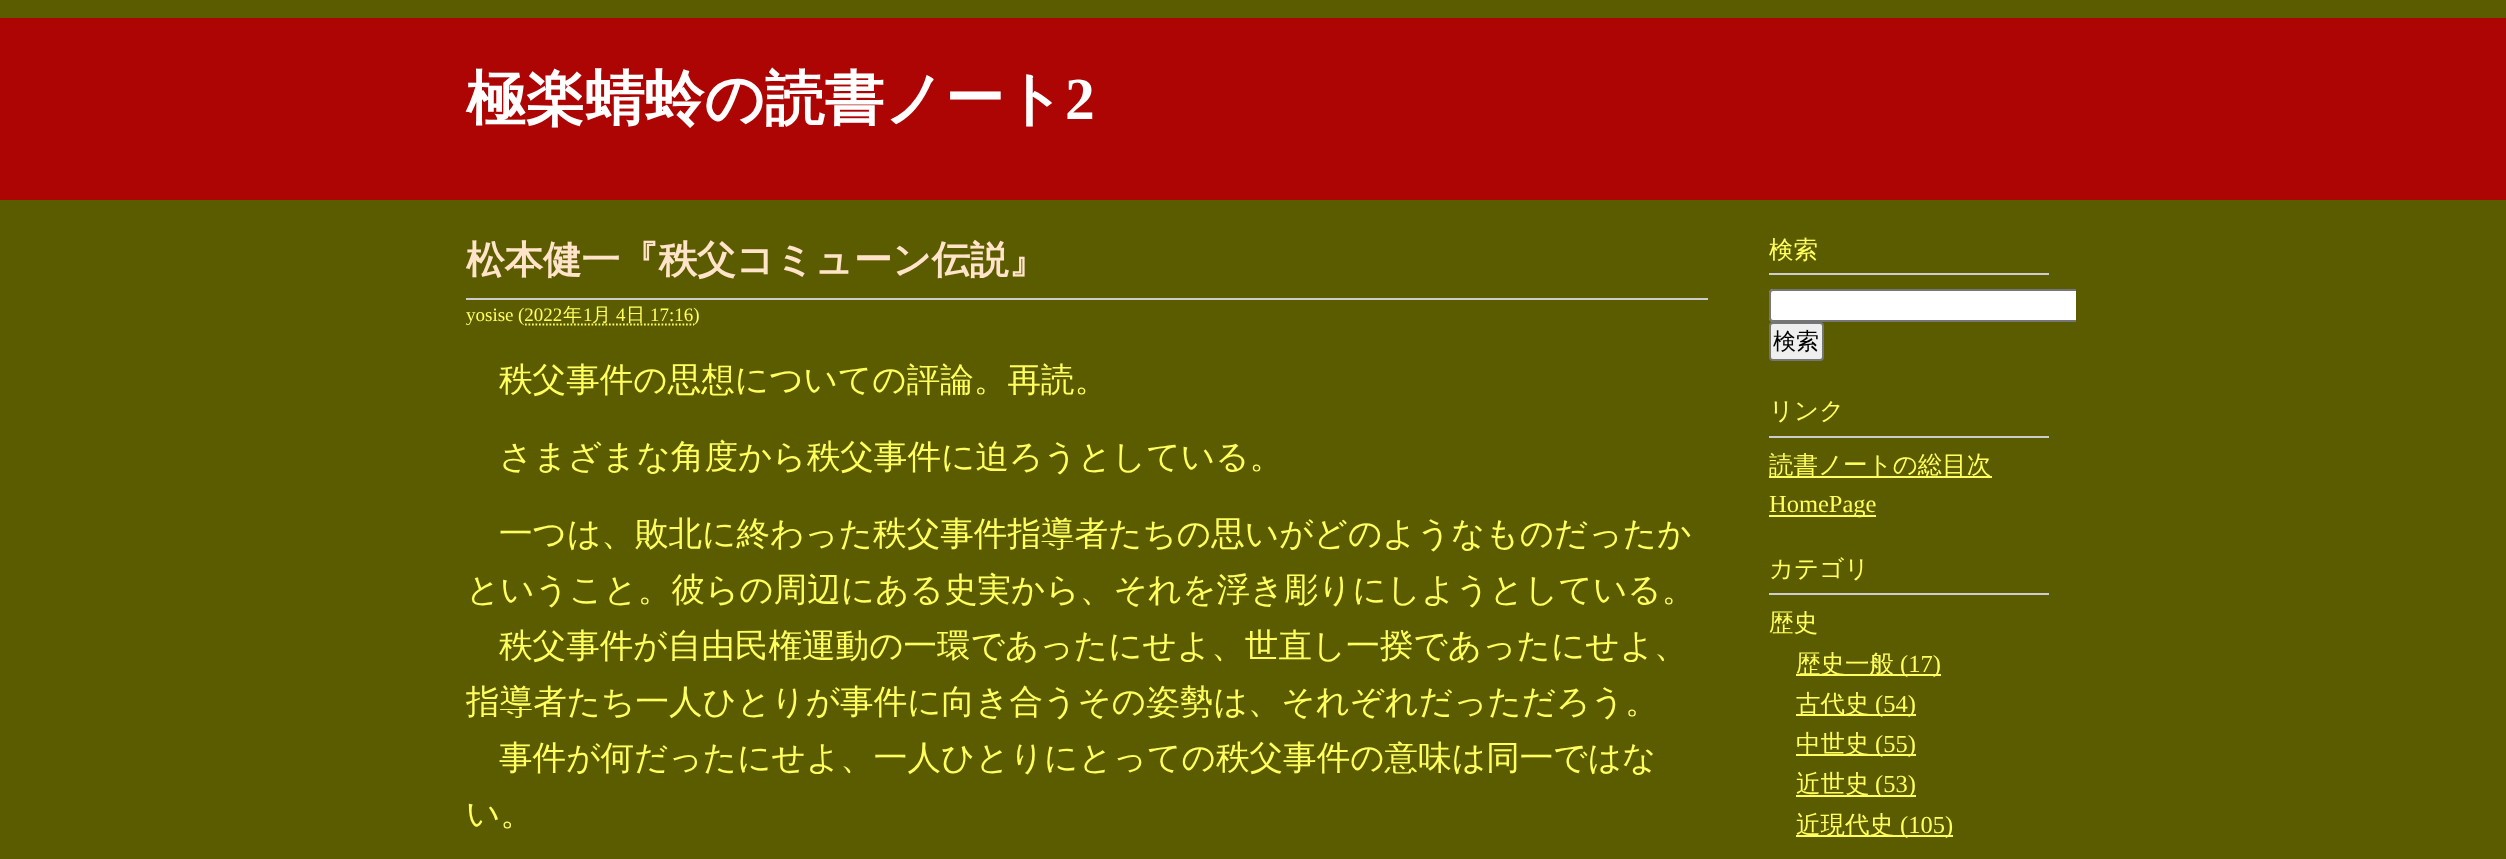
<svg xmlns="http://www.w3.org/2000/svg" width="2506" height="859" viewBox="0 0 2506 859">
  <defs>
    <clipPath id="clip1"><rect x="466" y="235" width="1242" height="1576"/></clipPath>
    <clipPath id="clip2"><rect x="1743" y="235" width="333" height="161"/></clipPath>
  </defs>
  <rect width="100%" height="100%" fill="#5b5b00"/>
  <rect x="0" y="18" width="2506" height="182" fill="#ad0404"/>
  <text x="466" y="119" font-family="WenQuanYi Zen Hei" font-size="59.5" font-weight="bold" fill="#ffffff">極楽蜻蛉の読書ノート</text>
  <text x="1065" y="119" font-family="Liberation Serif" font-size="59.5" font-weight="bold" fill="#ffffff">2</text>
  <text x="466" y="273" font-family="WenQuanYi Zen Hei" font-size="38.5" font-weight="bold" fill="#ffe4ca">松本健一『秩父コミューン伝説』</text>
  <rect x="466" y="298" width="1242" height="2" fill="#cccccc"/>
  <g clip-path="url(#clip1)">
    <text x="466" y="321" font-family="Liberation Serif" font-size="19" fill="#ffff60">yosise</text>
  </g>
  <text x="518" y="321" font-family="Liberation Serif" font-size="19" fill="#ffff60">(2022</text>
  <path d="M525 324.5H694" fill="none" stroke="#ffff60" stroke-width="1.8" stroke-dasharray="1.75 1.75"/>
  <text x="563" y="321" font-family="WenQuanYi Zen Hei" font-size="19" font-weight="500" fill="#ffff60">年</text>
  <text x="583" y="321" font-family="Liberation Serif" font-size="19" fill="#ffff60">1</text>
  <text x="592" y="321" font-family="WenQuanYi Zen Hei" font-size="19" font-weight="500" fill="#ffff60">月</text>
  <text x="616" y="321" font-family="Liberation Serif" font-size="19" fill="#ffff60">4</text>
  <text x="626" y="321" font-family="WenQuanYi Zen Hei" font-size="19" font-weight="500" fill="#ffff60">日</text>
  <text x="650" y="321" font-family="Liberation Serif" font-size="19" fill="#ffff60">17:16)</text>
  <text x="499" y="391" font-family="WenQuanYi Zen Hei" font-size="33.6" font-weight="500" fill="#ffff60">秩父事件の思想についての評論。再読。</text>
  <text x="499" y="468" font-family="WenQuanYi Zen Hei" font-size="33.6" font-weight="500" fill="#ffff60">さまざまな角度から秩父事件に迫ろうとしている。</text>
  <text x="499" y="545" font-family="WenQuanYi Zen Hei" font-size="33.6" font-weight="500" fill="#ffff60">一つは、敗北に終わった秩父事件指導者たちの思いがどのようなものだったか</text>
  <text x="466" y="601" font-family="WenQuanYi Zen Hei" font-size="33.6" font-weight="500" fill="#ffff60">ということ。彼らの周辺にある史実から、それを浮き彫りにしようとしている。</text>
  <text x="499" y="657" font-family="WenQuanYi Zen Hei" font-size="33.6" font-weight="500" fill="#ffff60">秩父事件が自由民権運動の一環であったにせよ、世直し一揆であったにせよ、</text>
  <g clip-path="url(#clip1)">
    <text x="466" y="713" font-family="WenQuanYi Zen Hei" font-size="33.6" font-weight="500" fill="#ffff60">指導者たち一人ひとりが事件に向き合うその姿勢は、それぞれだっただろう。</text>
  </g>
  <text x="499" y="769" font-family="WenQuanYi Zen Hei" font-size="33.6" font-weight="500" fill="#ffff60">事件が何だったにせよ、一人ひとりにとっての秩父事件の意味は同一ではな</text>
  <text x="466" y="825" font-family="WenQuanYi Zen Hei" font-size="33.6" font-weight="500" fill="#ffff60">い。</text>
  <rect x="1769" y="273" width="280" height="2" fill="#cccccc"/>
  <text x="1769" y="258" font-family="WenQuanYi Zen Hei" font-size="24.5" font-weight="500" fill="#ffff60">検索</text>
  <path d="M1773 289H2076V322H1773C1771 322 1769 320 1769 318V293C1769 291 1771 289 1773 289Z" fill="#ffffff"/>
  <g clip-path="url(#clip2)">
    <rect x="1770" y="290" width="315" height="31" rx="3" fill="none" stroke="#767676" stroke-width="2"/>
  </g>
  <rect x="1770" y="323" width="53" height="37" rx="3" fill="#efefef" stroke="#767676" stroke-width="2"/>
  <text x="1773" y="349" font-family="WenQuanYi Zen Hei" font-size="23" font-weight="500" fill="#000000">検索</text>
  <rect x="1769" y="436" width="280" height="2" fill="#cccccc"/>
  <text x="1769" y="419" font-family="WenQuanYi Zen Hei" font-size="24.5" font-weight="500" fill="#ffff60">リンク</text>
  <rect x="1769" y="476" width="223" height="2" fill="#ffff60"/>
  <text x="1769" y="473" font-family="WenQuanYi Zen Hei" font-size="24.5" font-weight="500" fill="#ffff60">読書ノートの総目次</text>
  <rect x="1769" y="515" width="107" height="2" fill="#ffff60"/>
  <text x="1769" y="512" font-family="Liberation Serif" font-size="24.5" fill="#ffff60">HomePage</text>
  <rect x="1769" y="593" width="280" height="2" fill="#cccccc"/>
  <text x="1769" y="577" font-family="WenQuanYi Zen Hei" font-size="24.5" font-weight="500" fill="#ffff60">カテゴリ</text>
  <text x="1769" y="631" font-family="WenQuanYi Zen Hei" font-size="24.5" font-weight="500" fill="#ffff60">歴史</text>
  <rect x="1796" y="674" width="145" height="2" fill="#ffff60"/>
  <text x="1796" y="672" font-family="WenQuanYi Zen Hei" font-size="24.5" font-weight="500" fill="#ffff60">歴史一般</text>
  <text x="1900" y="672" font-family="Liberation Serif" font-size="24.5" fill="#ffff60">(17)</text>
  <rect x="1796" y="714" width="120" height="2" fill="#ffff60"/>
  <text x="1796" y="712" font-family="WenQuanYi Zen Hei" font-size="24.5" font-weight="500" fill="#ffff60">古代史</text>
  <text x="1875" y="712" font-family="Liberation Serif" font-size="24.5" fill="#ffff60">(54)</text>
  <rect x="1796" y="754" width="120" height="2" fill="#ffff60"/>
  <text x="1796" y="752" font-family="WenQuanYi Zen Hei" font-size="24.5" font-weight="500" fill="#ffff60">中世史</text>
  <text x="1875" y="752" font-family="Liberation Serif" font-size="24.5" fill="#ffff60">(55)</text>
  <rect x="1796" y="795" width="120" height="2" fill="#ffff60"/>
  <text x="1796" y="792" font-family="WenQuanYi Zen Hei" font-size="24.5" font-weight="500" fill="#ffff60">近世史</text>
  <text x="1875" y="792" font-family="Liberation Serif" font-size="24.5" fill="#ffff60">(53)</text>
  <rect x="1796" y="835" width="157" height="2" fill="#ffff60"/>
  <text x="1796" y="833" font-family="WenQuanYi Zen Hei" font-size="24.5" font-weight="500" fill="#ffff60">近現代史</text>
  <text x="1900" y="833" font-family="Liberation Serif" font-size="24.5" fill="#ffff60">(105)</text>
</svg>
